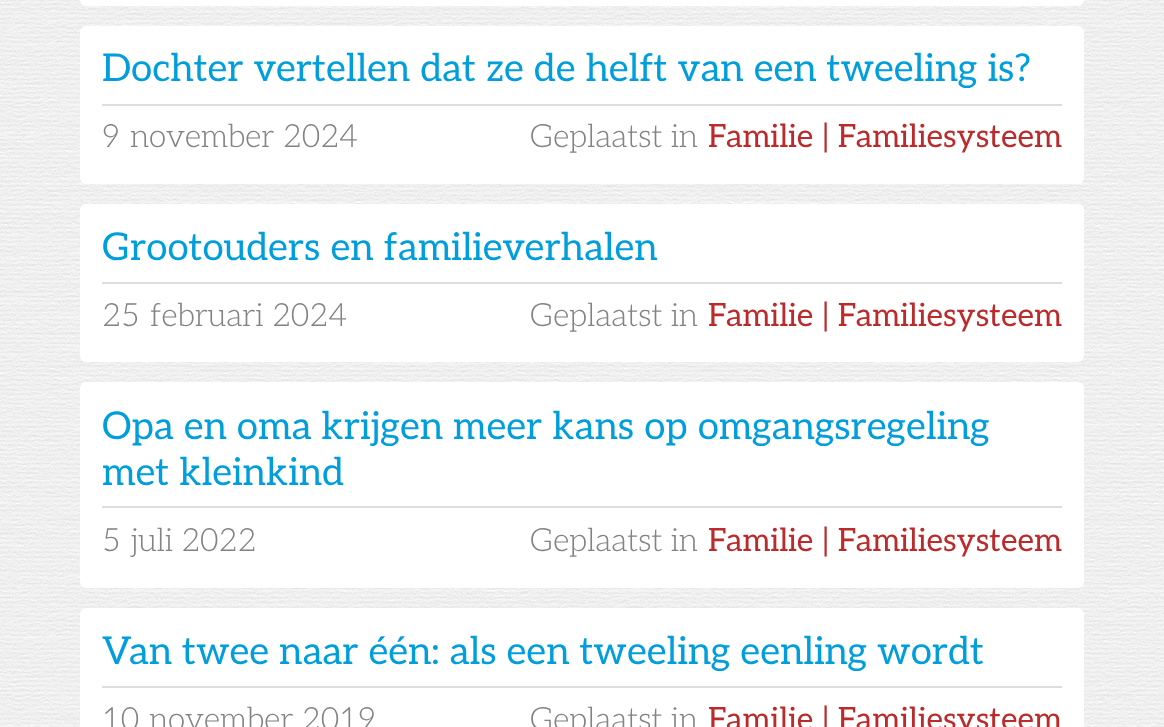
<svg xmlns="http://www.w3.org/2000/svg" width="1164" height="727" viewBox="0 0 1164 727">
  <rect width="100%" height="100%" fill="#ffffff"/>
  <image x="0" y="0" width="1164" height="727" href="img1.png"/>
  <rect x="80" y="-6" width="1004" height="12" rx="6" fill="#ffffff"/>
  <rect x="80" y="26" width="1004" height="158" rx="6" fill="#ffffff"/>
  <text x="102" y="81" font-family="Aleo" font-size="38.4" fill="#009edc">Dochter vertellen dat ze de helft van een tweeling is?</text>
  <rect x="102" y="104" width="960" height="2" fill="#dddddd"/>
  <text x="102" y="147" font-family="Aleo" font-size="32" font-weight="300" fill="#838383">9</text>
  <text x="130" y="147" font-family="Aleo" font-size="32" font-weight="300" fill="#838383">november 2024</text>
  <text x="530" y="147" font-family="Aleo" font-size="32" font-weight="300" fill="#838383">Geplaatst in</text>
  <text x="708" y="147" font-family="Aleo" font-size="32" fill="#bb2b2b">Familie | Familiesysteem</text>
  <rect x="80" y="204" width="1004" height="158" rx="6" fill="#ffffff"/>
  <text x="102" y="260" font-family="Aleo" font-size="38.4" fill="#009edc">Grootouders en familieverhalen</text>
  <rect x="102" y="282" width="960" height="2" fill="#dddddd"/>
  <text x="102" y="326" font-family="Aleo" font-size="32" font-weight="300" fill="#838383">25</text>
  <text x="150" y="326" font-family="Aleo" font-size="32" font-weight="300" fill="#838383">februari 2024</text>
  <text x="530" y="326" font-family="Aleo" font-size="32" font-weight="300" fill="#838383">Geplaatst in</text>
  <text x="708" y="326" font-family="Aleo" font-size="32" fill="#bb2b2b">Familie | Familiesysteem</text>
  <rect x="80" y="382" width="1004" height="206" rx="6" fill="#ffffff"/>
  <text x="102" y="439" font-family="Aleo" font-size="38.4" fill="#009edc">Opa en oma krijgen meer kans op omgangsregeling</text>
  <text x="102" y="485" font-family="Aleo" font-size="38.4" fill="#009edc">met kleinkind</text>
  <rect x="102" y="506" width="960" height="2" fill="#dddddd"/>
  <text x="102" y="551" font-family="Aleo" font-size="32" font-weight="300" fill="#838383">5</text>
  <text x="131" y="551" font-family="Aleo" font-size="32" font-weight="300" fill="#838383">juli 2022</text>
  <text x="530" y="551" font-family="Aleo" font-size="32" font-weight="300" fill="#838383">Geplaatst in</text>
  <text x="708" y="551" font-family="Aleo" font-size="32" fill="#bb2b2b">Familie | Familiesysteem</text>
  <rect x="80" y="608" width="1004" height="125" rx="6" fill="#ffffff"/>
  <text x="102" y="664" font-family="Aleo" font-size="38.4" fill="#009edc">Van twee naar één: als een tweeling eenling wordt</text>
  <rect x="102" y="686" width="960" height="2" fill="#dddddd"/>
  <text x="102" y="730" font-family="Aleo" font-size="32" font-weight="300" fill="#838383">10</text>
  <text x="149" y="730" font-family="Aleo" font-size="32" font-weight="300" fill="#838383">november 2019</text>
  <text x="530" y="730" font-family="Aleo" font-size="32" font-weight="300" fill="#838383">Geplaatst in</text>
  <text x="708" y="730" font-family="Aleo" font-size="32" fill="#bb2b2b">Familie | Familiesysteem</text>
</svg>
